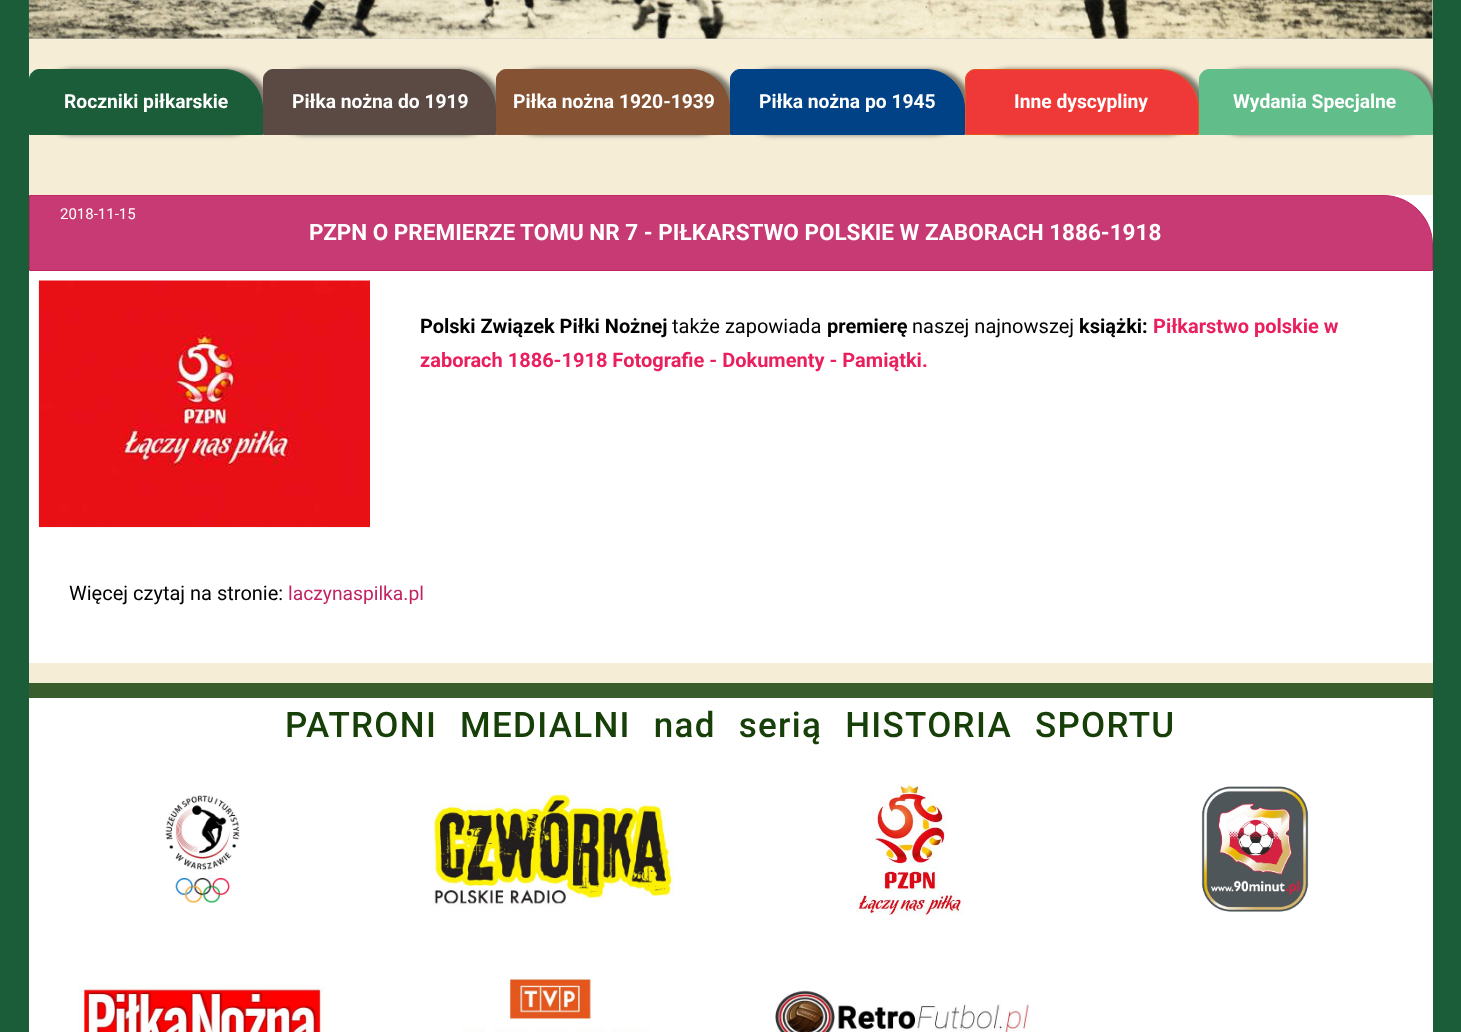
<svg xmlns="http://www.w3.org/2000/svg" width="1461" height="1032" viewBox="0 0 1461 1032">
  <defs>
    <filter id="blur1" x="-50%" y="-200%" width="200%" height="500%"><feGaussianBlur stdDeviation="2.5"/></filter>
    <clipPath id="clip1"><rect x="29" y="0" width="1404" height="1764"/></clipPath>
  </defs>
  <rect width="100%" height="100%" fill="#1b5d39"/>
  <rect x="29" y="39" width="1404" height="644" fill="#f5edd6"/>
  <rect x="29" y="0" width="1404" height="39" fill="#cccccc"/>
  <image x="28" y="0" width="1405" height="39" href="img1.png"/>
  <rect x="34" y="69" width="234" height="66" rx="40" fill="#000000" fill-opacity="0.5" filter="url(#blur1)"/>
  <path d="M39 69.5H223C245 69.5 262.5 87 262.5 109V134.5H29.5V79C29.5 74 34 69.5 39 69.5Z" fill="#1b5d39" stroke="#1b5d39"/>
  <text x="64" y="108" font-family="Roboto" font-size="19.25" font-weight="bold" fill="#ffffff">Roczniki piłkarskie</text>
  <rect x="268" y="69" width="233" height="66" rx="40" fill="#000000" fill-opacity="0.5" filter="url(#blur1)"/>
  <path d="M273 69.5H456C478 69.5 495.5 87 495.5 109V134.5H263.5V79C263.5 74 268 69.5 273 69.5Z" fill="#5b4a43" stroke="#5b4a43"/>
  <text x="292" y="108" font-family="Roboto" font-size="19.25" font-weight="bold" fill="#ffffff">Piłka nożna do 1919</text>
  <rect x="501" y="69" width="234" height="66" rx="40" fill="#000000" fill-opacity="0.5" filter="url(#blur1)"/>
  <path d="M506 69.5H690C712 69.5 729.5 87 729.5 109V134.5H496.5V79C496.5 74 501 69.5 506 69.5Z" fill="#855333" stroke="#855333"/>
  <text x="513" y="108" font-family="Roboto" font-size="19.25" font-weight="bold" fill="#ffffff">Piłka nożna 1920-1939</text>
  <rect x="735" y="69" width="235" height="66" rx="40" fill="#000000" fill-opacity="0.5" filter="url(#blur1)"/>
  <path d="M740 69.5H925C947 69.5 964.5 87 964.5 109V134.5H730.5V79C730.5 74 735 69.5 740 69.5Z" fill="#004285" stroke="#004285"/>
  <text x="759" y="108" font-family="Roboto" font-size="19.25" font-weight="bold" fill="#ffffff">Piłka nożna po 1945</text>
  <rect x="970" y="69" width="234" height="66" rx="40" fill="#000000" fill-opacity="0.5" filter="url(#blur1)"/>
  <path d="M975 69.5H1159C1181 69.5 1198.5 87 1198.5 109V134.5H965.5V79C965.5 74 970 69.5 975 69.5Z" fill="#ef3939" stroke="#e6571d"/>
  <text x="1014" y="108" font-family="Roboto" font-size="19.25" font-weight="bold" fill="#ffffff">Inne dyscypliny</text>
  <g clip-path="url(#clip1)">
    <rect x="1204" y="69" width="234" height="66" rx="40" fill="#000000" fill-opacity="0.5" filter="url(#blur1)"/>
  </g>
  <path d="M1209 69.5H1393C1415 69.5 1432.5 87 1432.5 109V134.5H1199.5V79C1199.5 74 1204 69.5 1209 69.5Z" fill="#61bd8a" stroke="#61bd8a"/>
  <text x="1233" y="108" font-family="Roboto" font-size="19.25" font-weight="bold" fill="#ffffff">Wydania Specjalne</text>
  <rect x="29" y="195" width="1404" height="468" fill="#ffffff"/>
  <path d="M29.5 195.5H1383C1410.5 195.5 1432.5 217.5 1432.5 245V270.5H29.5Z" fill="#c83a73" stroke="#c22463"/>
  <text x="60" y="219" font-family="Roboto" font-size="15" fill="#ffffff">2018-11-15</text>
  <text x="309" y="240" font-family="Roboto" font-size="22.5" font-weight="bold" fill="#ffffff">PZPN O PREMIERZE TOMU NR 7 - PIŁKARSTWO POLSKIE W ZABORACH 1886-1918</text>
  <image x="38" y="280" width="332" height="248" href="img2.png"/>
  <text x="420" y="333" font-family="Roboto" font-size="20" font-weight="bold" fill="#000000">Polski Związek Piłki Nożnej</text>
  <text x="672" y="333" font-family="Roboto" font-size="20" fill="#000000">także zapowiada</text>
  <text x="827" y="333" font-family="Roboto" font-size="20" font-weight="bold" fill="#000000">premierę</text>
  <text x="912" y="333" font-family="Roboto" font-size="20" fill="#000000">naszej najnowszej</text>
  <text x="1079" y="333" font-family="Roboto" font-size="20" font-weight="bold" fill="#000000">książki:</text>
  <text x="1153" y="333" font-family="Roboto" font-size="20" font-weight="bold" fill="#ea205e">Piłkarstwo polskie w</text>
  <text x="420" y="367" font-family="Roboto" font-size="20" font-weight="bold" fill="#ea205e">zaborach 1886-1918 Fotografie - Dokumenty - Pamiątki.</text>
  <text x="69" y="600" font-family="Roboto" font-size="20" fill="#000000">Więcej czytaj na stronie:</text>
  <text x="288" y="600" font-family="Roboto" font-size="19.25" fill="#c22463">laczynaspilka.pl</text>
  <rect x="29" y="698" width="1404" height="334" fill="#ffffff"/>
  <rect x="29" y="683" width="1404" height="15" fill="#3a5d2e"/>
  <text x="285" y="737" word-spacing="13" font-family="Roboto" font-size="35" font-weight="500" letter-spacing="1.3" fill="#174009">PATRONI MEDIALNI nad serią HISTORIA SPORTU</text>
  <image x="165" y="795" width="75" height="108" href="img3.png"/>
  <image x="429" y="790" width="246" height="116" href="img4.png"/>
  <image x="855" y="784" width="109" height="131" href="img5.png"/>
  <image x="1201" y="786" width="108" height="126" href="img6.png"/>
  <image x="78" y="985" width="246" height="47" href="img7.png"/>
  <image x="460" y="978" width="191" height="54" href="img8.png"/>
  <image x="775" y="990" width="254" height="42" href="img9.png"/>
</svg>
